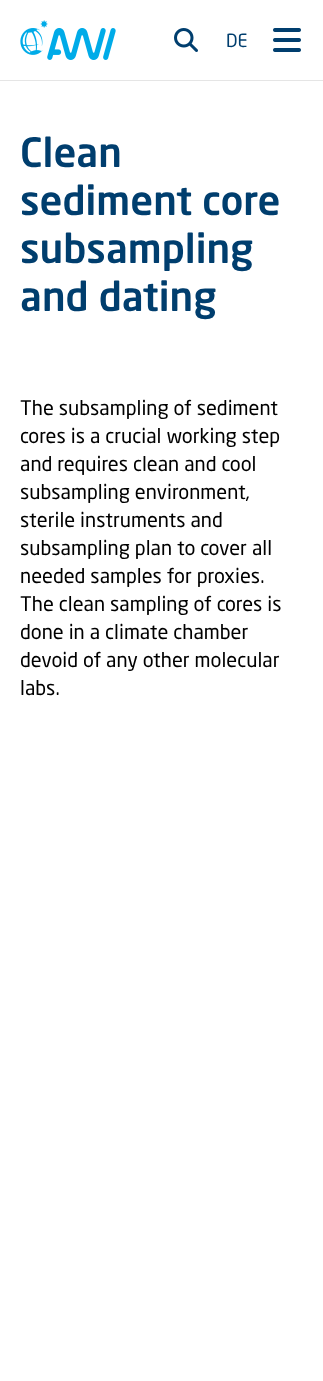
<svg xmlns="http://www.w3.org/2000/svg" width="323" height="1381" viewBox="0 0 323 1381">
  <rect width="100%" height="100%" fill="#ffffff"/>
  <rect x="0" y="80" width="323" height="1" fill="#e5e5e5"/>
  <image x="20" y="20" width="96" height="40" href="img1.png"/>
  <image x="174" y="28" width="24" height="24" href="img2.png"/>
  <text x="226" y="47" font-family="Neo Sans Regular" font-size="18" fill="#003e6e">DE</text>
  <image x="273" y="28" width="28" height="24" href="img3.png"/>
  <text x="20" y="167" font-family="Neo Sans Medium" font-size="40" font-weight="500" fill="#003e6e">Clean</text>
  <text x="20" y="215" font-family="Neo Sans Medium" font-size="40" font-weight="500" fill="#003e6e">sediment core</text>
  <text x="20" y="263" font-family="Neo Sans Medium" font-size="40" font-weight="500" fill="#003e6e">subsampling</text>
  <text x="20" y="311" font-family="Neo Sans Medium" font-size="40" font-weight="500" fill="#003e6e">and dating</text>
  <text x="20" y="415" font-family="Neo Sans Regular" font-size="20" fill="#000000">The subsampling of sediment</text>
  <text x="20" y="443" font-family="Neo Sans Regular" font-size="20" fill="#000000">cores is a crucial working step</text>
  <text x="20" y="471" font-family="Neo Sans Regular" font-size="20" fill="#000000">and requires clean and cool</text>
  <text x="20" y="499" font-family="Neo Sans Regular" font-size="20" fill="#000000">subsampling environment,</text>
  <text x="20" y="527" font-family="Neo Sans Regular" font-size="20" fill="#000000">sterile instruments and</text>
  <text x="20" y="555" font-family="Neo Sans Regular" font-size="20" fill="#000000">subsampling plan to cover all</text>
  <text x="20" y="583" font-family="Neo Sans Regular" font-size="20" fill="#000000">needed samples for proxies.</text>
  <text x="20" y="611" font-family="Neo Sans Regular" font-size="20" fill="#000000">The clean sampling of cores is</text>
  <text x="20" y="639" font-family="Neo Sans Regular" font-size="20" fill="#000000">done in a climate chamber</text>
  <text x="20" y="667" font-family="Neo Sans Regular" font-size="20" fill="#000000">devoid of any other molecular</text>
  <text x="20" y="695" font-family="Neo Sans Regular" font-size="20" fill="#000000">labs.</text>
</svg>
